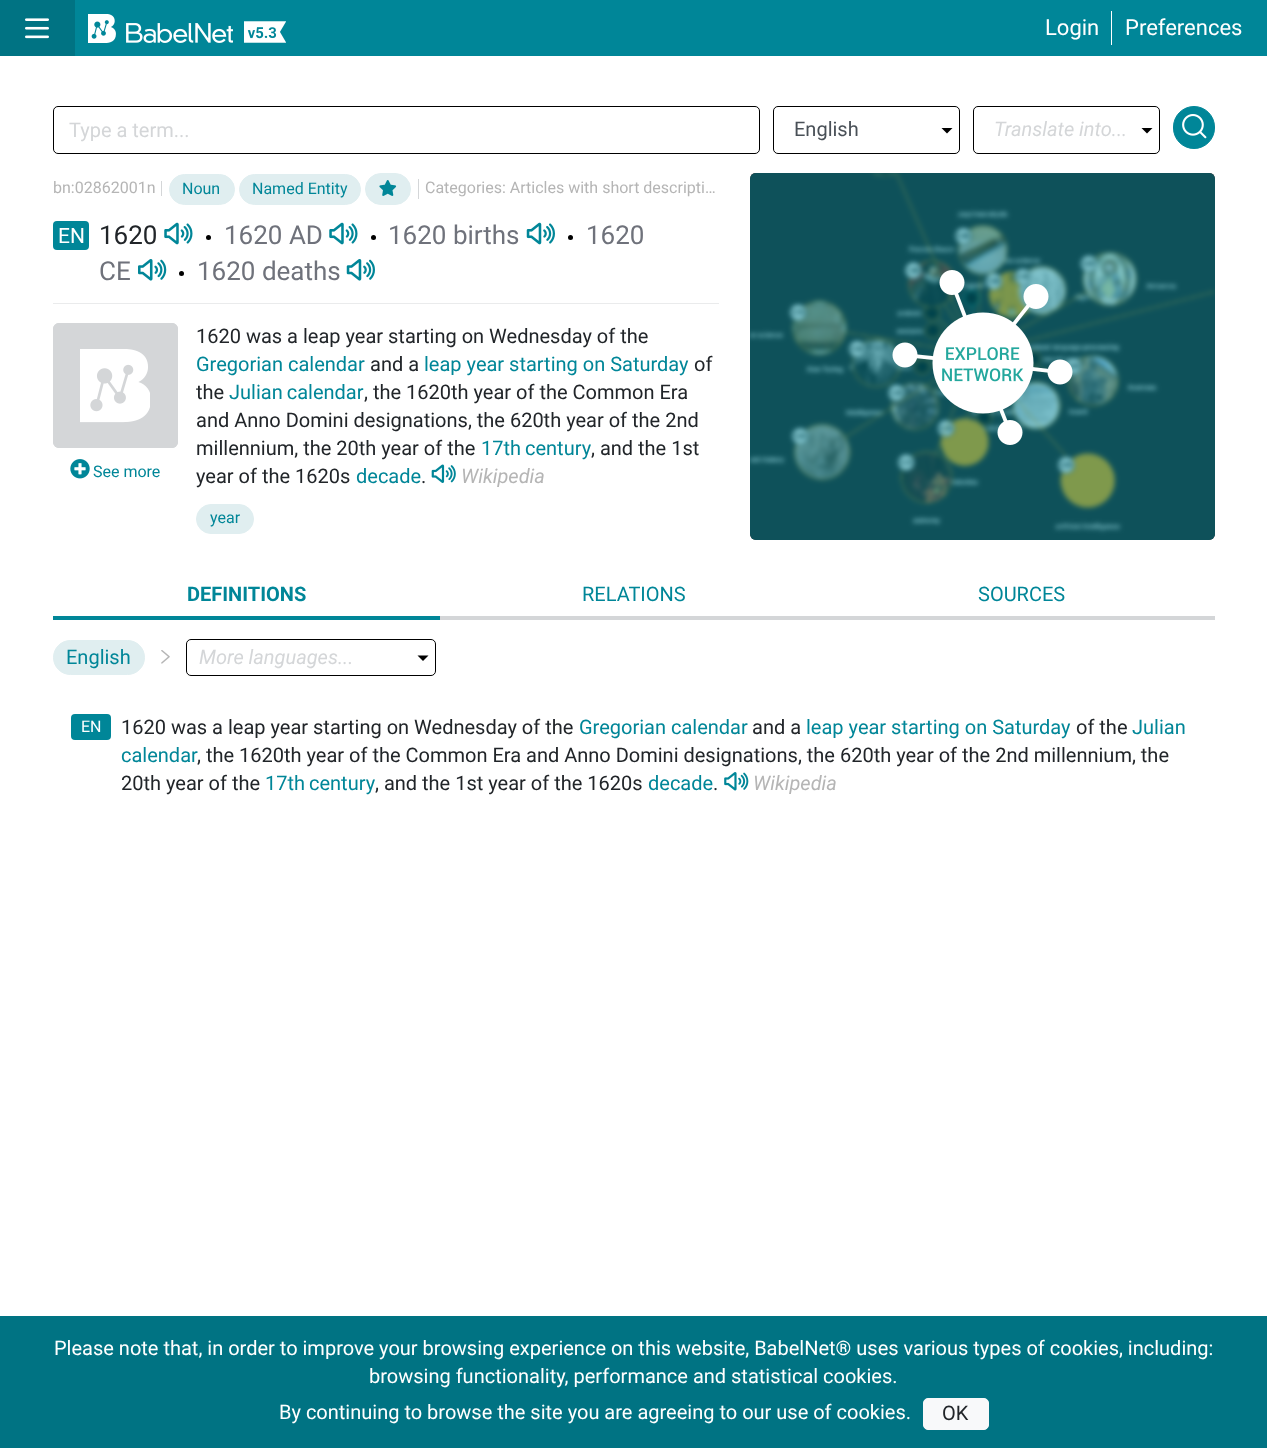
<svg xmlns="http://www.w3.org/2000/svg" width="1267" height="1448" viewBox="0 0 1267 1448">
  <rect width="100%" height="100%" fill="#ffffff"/>
  <rect x="75" y="0" width="1192" height="56" fill="#008698"/>
  <rect x="0" y="0" width="75" height="56" fill="#007383"/>
  <image x="25" y="18" width="24" height="21" href="img1.png"/>
  <image x="88" y="14" width="145" height="29" href="img2.png"/>
  <image x="244" y="21" width="42" height="22" href="img3.png"/>
  <rect x="1111" y="11" width="1" height="34" fill="#ffffff"/>
  <text x="1045" y="35" font-family="Roboto" font-size="22" fill="#ffffff">Login</text>
  <text x="1125" y="35" font-family="Roboto" font-size="22" fill="#ffffff">Preferences</text>
  <rect x="53.5" y="106.5" width="706" height="47" rx="4.5" fill="none" stroke="#000000"/>
  <text x="69" y="137" font-family="Roboto" font-size="20" fill="#d4d6d8">Type a term...</text>
  <rect x="773.5" y="106.5" width="186" height="47" rx="4.5" fill="none" stroke="#000000"/>
  <path d="M947 133.5L941.5 128H952.5Z" fill="#000000"/>
  <text x="794" y="136" font-family="Roboto" font-size="20" fill="#495057">English</text>
  <rect x="973.5" y="106.5" width="186" height="47" rx="4.5" fill="none" stroke="#000000"/>
  <path d="M1147 133.5L1141.5 128H1152.5Z" fill="#000000"/>
  <text x="994" y="136" font-family="Roboto" font-size="20" font-style="italic" fill="#d4d6d8">Translate into...</text>
  <rect x="1173.5" y="106.5" width="41" height="42" rx="20.5" fill="#008698" stroke="#008698"/>
  <image x="1182" y="114" width="25" height="25" href="img4.png"/>
  <rect x="161" y="181" width="1" height="15" fill="#d4d6d8"/>
  <text x="53" y="193" font-family="Roboto" font-size="16" fill="#b5b5b5">bn:02862001n</text>
  <rect x="169.5" y="174.5" width="65" height="30" rx="15" fill="#e0eef0" stroke="#e0eef0"/>
  <text x="182" y="194" font-family="Roboto" font-size="16" fill="#008698">Noun</text>
  <rect x="239.5" y="174.5" width="121" height="30" rx="15" fill="#e0eef0" stroke="#e0eef0"/>
  <text x="252" y="194" font-family="Roboto" font-size="16" fill="#008698">Named Entity</text>
  <rect x="365.5" y="173.5" width="45" height="31" rx="15.5" fill="#e0eef0" stroke="#e0eef0"/>
  <image x="379" y="180" width="18" height="16" href="img5.png"/>
  <rect x="418" y="179" width="1" height="20" fill="#d4d6d8"/>
  <text x="425" y="193" font-family="Roboto" font-size="16" fill="#b5b5b5">Categories: Articles with short descripti…</text>
  <rect x="53" y="303" width="666" height="1" fill="#eaebec"/>
  <rect x="53" y="221" width="36" height="29" rx="4" fill="#008698"/>
  <text x="58" y="243" font-family="Roboto" font-size="21" fill="#ffffff">EN</text>
  <text x="99" y="244" font-family="Roboto" font-size="26" fill="#212529">1620</text>
  <image x="164" y="222" width="29" height="23" href="img6.png"/>
  <circle cx="208.5" cy="237.5" r="2.5" fill="#000000"/>
  <text x="224" y="244" font-family="Roboto" font-size="26" fill="#6f727b">1620 AD</text>
  <image x="329" y="222" width="29" height="23" href="img6.png"/>
  <circle cx="373.5" cy="237.5" r="2.5" fill="#000000"/>
  <text x="388" y="244" font-family="Roboto" font-size="26" fill="#6f727b">1620 births</text>
  <image x="526" y="222" width="29" height="23" href="img7.png"/>
  <circle cx="570.5" cy="237.5" r="2.5" fill="#000000"/>
  <text x="586" y="244" font-family="Roboto" font-size="26" fill="#6f727b">1620</text>
  <text x="99" y="280" font-family="Roboto" font-size="26" fill="#6f727b">CE</text>
  <image x="138" y="259" width="29" height="22" href="img8.png"/>
  <circle cx="181.5" cy="273.5" r="2.5" fill="#000000"/>
  <text x="197" y="280" font-family="Roboto" font-size="26" fill="#6f727b">1620 deaths</text>
  <image x="346" y="259" width="29" height="22" href="img9.png"/>
  <rect x="53" y="323" width="125" height="125" rx="6" fill="#d4d6d8"/>
  <image x="80" y="349" width="70" height="74" href="img10.png"/>
  <rect x="53.5" y="323.5" width="124" height="124" rx="5.5" fill="none" stroke="#d4d6d8"/>
  <image x="70" y="459" width="20" height="20" href="img11.png"/>
  <text x="93" y="477" font-family="Roboto" font-size="16" fill="#008698">See more</text>
  <text x="196" y="343" font-family="Roboto" font-size="20" fill="#212529">1620 was a leap year starting on Wednesday of the</text>
  <text x="196" y="371" font-family="Roboto" font-size="20" fill="#008698">Gregorian calendar</text>
  <text x="370" y="371" font-family="Roboto" font-size="20" fill="#212529">and a</text>
  <text x="424" y="371" font-family="Roboto" font-size="20" fill="#008698">leap year starting on Saturday</text>
  <text x="694" y="371" font-family="Roboto" font-size="20" fill="#212529">of</text>
  <text x="196" y="399" font-family="Roboto" font-size="20" fill="#212529">the</text>
  <text x="229" y="399" word-spacing="-1" font-family="Roboto" font-size="20" fill="#008698">Julian calendar</text>
  <text x="364" y="399" font-family="Roboto" font-size="20" fill="#212529">, the 1620th year of the Common Era</text>
  <text x="196" y="427" font-family="Roboto" font-size="20" fill="#212529">and Anno Domini designations, the 620th year of the 2nd</text>
  <text x="196" y="455" font-family="Roboto" font-size="20" fill="#212529">millennium, the 20th year of the</text>
  <text x="481" y="455" word-spacing="-1" font-family="Roboto" font-size="20" fill="#008698">17th century</text>
  <text x="591" y="455" font-family="Roboto" font-size="20" fill="#212529">, and the 1st</text>
  <text x="196" y="483" font-family="Roboto" font-size="20" fill="#212529">year of the 1620s</text>
  <text x="356" y="483" font-family="Roboto" font-size="20" fill="#008698">decade</text>
  <text x="421" y="483" font-family="Roboto" font-size="20" fill="#212529">.</text>
  <image x="431" y="464" width="25" height="19" href="img12.png"/>
  <text x="461" y="483" font-family="Roboto" font-size="20" font-style="italic" fill="#b5b5b5">Wikipedia</text>
  <rect x="196.5" y="504.5" width="57" height="29" rx="14.5" fill="#e0eef0" stroke="#e0eef0"/>
  <text x="210" y="523" font-family="Roboto" font-size="16" fill="#008698">year</text>
  <rect x="750" y="173" width="465" height="367" rx="6" fill="#1d1d1d"/>
  <image x="750" y="173" width="465" height="367" href="img13.png"/>
  <rect x="750" y="173" width="465" height="367" rx="6" fill="#008698" fill-opacity="0.5"/>
  <image x="892" y="270" width="181" height="175" href="img14.png"/>
  <rect x="53" y="616" width="387" height="4" fill="#008698"/>
  <text x="187" y="601" font-family="Roboto" font-size="20" font-weight="bold" fill="#008698">DEFINITIONS</text>
  <rect x="440" y="616" width="775" height="4" fill="#d4d6d8"/>
  <text x="582" y="601" font-family="Roboto" font-size="20" fill="#008698">RELATIONS</text>
  <text x="978" y="601" font-family="Roboto" font-size="20" fill="#008698">SOURCES</text>
  <rect x="53.5" y="640.5" width="91" height="34" rx="17" fill="#e0eef0" stroke="#e0eef0"/>
  <text x="66" y="664" font-family="Roboto" font-size="20" fill="#008698">English</text>
  <image x="161" y="650" width="9" height="14" href="img15.png"/>
  <rect x="186.5" y="639.5" width="249" height="36" rx="4.5" fill="none" stroke="#000000"/>
  <path d="M423 661L417.5 655.5H428.5Z" fill="#000000"/>
  <text x="199" y="664" font-family="Roboto" font-size="20" font-style="italic" fill="#d4d6d8">More languages...</text>
  <rect x="71" y="714" width="40" height="26" rx="4" fill="#008698"/>
  <text x="81" y="732" font-family="Roboto" font-size="16" fill="#ffffff">EN</text>
  <text x="121" y="734" font-family="Roboto" font-size="20" fill="#212529">1620 was a leap year starting on Wednesday of the</text>
  <text x="579" y="734" font-family="Roboto" font-size="20" fill="#008698">Gregorian calendar</text>
  <text x="752" y="734" font-family="Roboto" font-size="20" fill="#212529">and a</text>
  <text x="806" y="734" font-family="Roboto" font-size="20" fill="#008698">leap year starting on Saturday</text>
  <text x="1076" y="734" font-family="Roboto" font-size="20" fill="#212529">of the</text>
  <text x="1132" y="734" font-family="Roboto" font-size="20" fill="#008698">Julian</text>
  <text x="121" y="762" font-family="Roboto" font-size="20" fill="#008698">calendar</text>
  <text x="197" y="762" font-family="Roboto" font-size="20" fill="#212529">, the 1620th year of the Common Era and Anno Domini designations, the 620th year of the 2nd millennium, the</text>
  <text x="121" y="790" font-family="Roboto" font-size="20" fill="#212529">20th year of the</text>
  <text x="265" y="790" word-spacing="-1" font-family="Roboto" font-size="20" fill="#008698">17th century</text>
  <text x="375" y="790" font-family="Roboto" font-size="20" fill="#212529">, and the 1st year of the 1620s</text>
  <text x="648" y="790" font-family="Roboto" font-size="20" fill="#008698">decade</text>
  <text x="713" y="790" font-family="Roboto" font-size="20" fill="#212529">.</text>
  <image x="724" y="772" width="25" height="19" href="img16.png"/>
  <text x="753" y="790" font-family="Roboto" font-size="20" font-style="italic" fill="#b5b5b5">Wikipedia</text>
  <rect x="0" y="1316" width="1267" height="132" fill="#007383"/>
  <text x="54" y="1355" font-family="Roboto" font-size="20" fill="#ffffff">Please note that, in order to improve your browsing experience on this website, BabelNet® uses various types of cookies, including:</text>
  <text x="369" y="1383" font-family="Roboto" font-size="20" fill="#ffffff">browsing functionality, performance and statistical cookies.</text>
  <text x="279" y="1419" font-family="Roboto" font-size="20" fill="#ffffff">By continuing to browse the site you are agreeing to our use of cookies.</text>
  <rect x="923.5" y="1398.5" width="65" height="31" rx="4.5" fill="#f8f9fa" stroke="#f8f9fa"/>
  <text x="942" y="1420" font-family="Roboto" font-size="20" fill="#212529">OK</text>
</svg>
